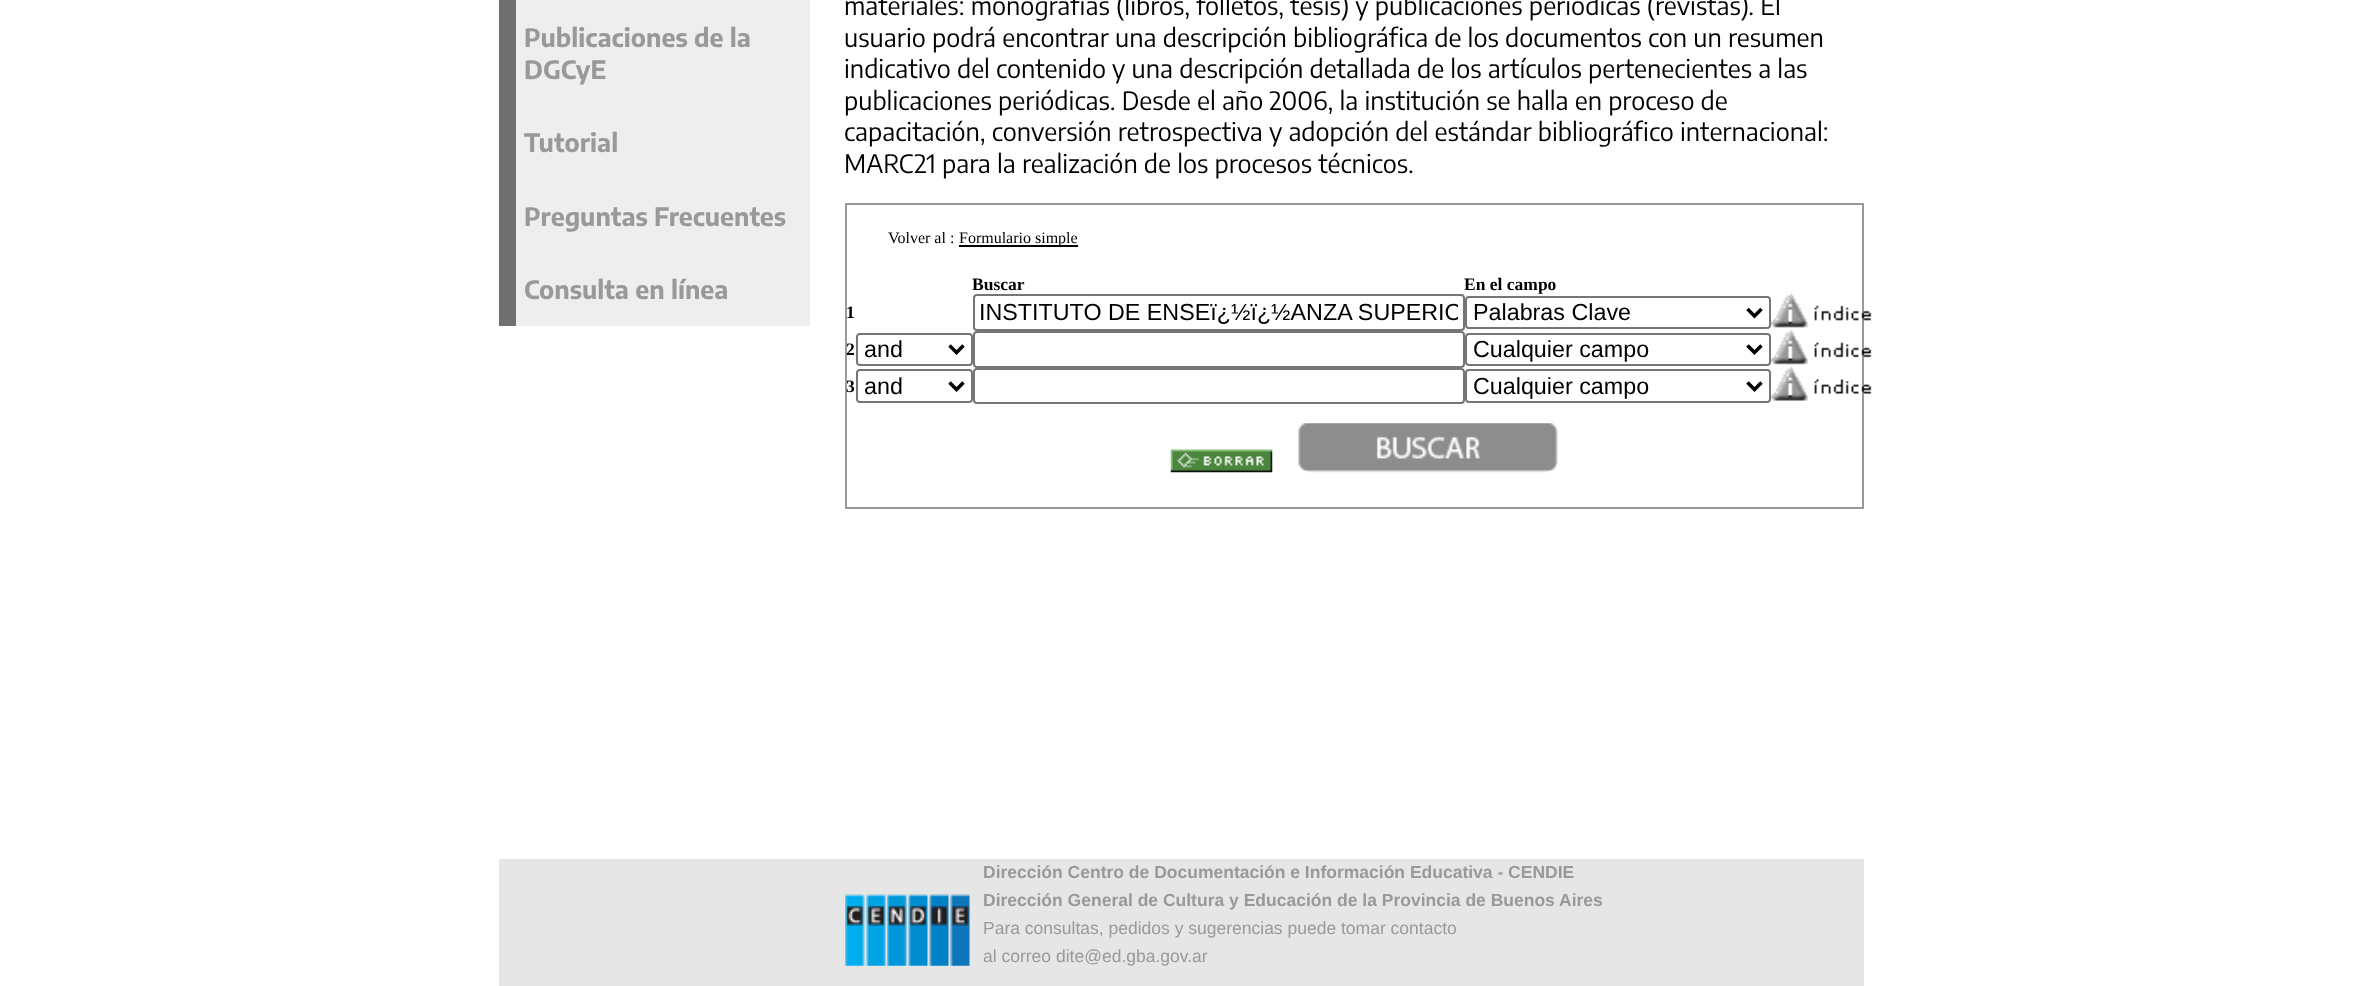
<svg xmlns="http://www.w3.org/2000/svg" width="2360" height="986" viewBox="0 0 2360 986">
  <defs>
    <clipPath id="clip1"><rect x="980" y="299" width="478" height="27"/></clipPath>
    <clipPath id="clip2"><rect x="865" y="334" width="78" height="30"/></clipPath>
    <clipPath id="clip3"><rect x="1474" y="334" width="267" height="30"/></clipPath>
    <clipPath id="clip4"><rect x="865" y="371" width="78" height="30"/></clipPath>
    <clipPath id="clip5"><rect x="1474" y="371" width="267" height="30"/></clipPath>
  </defs>
  <rect width="100%" height="100%" fill="#ffffff"/>
  <rect x="516" y="0" width="294" height="326" fill="#eeeeee"/>
  <rect x="499" y="0" width="17" height="326" fill="#707070"/>
  <text x="524" y="47" font-family="Encode Sans Condensed" font-size="25.2" font-weight="bold" fill="#9a9999">Publicaciones de la</text>
  <text x="524" y="79" font-family="Encode Sans Condensed" font-size="25.2" font-weight="bold" fill="#9a9999">DGCyE</text>
  <text x="524" y="152" font-family="Encode Sans Condensed" font-size="25.2" font-weight="bold" fill="#9a9999">Tutorial</text>
  <text x="524" y="226" font-family="Encode Sans Condensed" font-size="25.2" font-weight="bold" fill="#9a9999">Preguntas Frecuentes</text>
  <text x="524" y="299" font-family="Encode Sans Condensed" font-size="25.2" font-weight="bold" fill="#9a9999">Consulta en línea</text>
  <text x="844" y="15" font-family="Encode Sans Condensed" font-size="25.2" fill="#000000">materiales: monografías (libros, folletos, tesis) y publicaciones periódicas (revistas). El</text>
  <text x="844" y="47" font-family="Encode Sans Condensed" font-size="25.2" fill="#000000">usuario podrá encontrar una descripción bibliográfica de los documentos con un resumen</text>
  <text x="844" y="78" font-family="Encode Sans Condensed" font-size="25.2" fill="#000000">indicativo del contenido y una descripción detallada de los artículos pertenecientes a las</text>
  <text x="844" y="110" font-family="Encode Sans Condensed" font-size="25.2" fill="#000000">publicaciones periódicas. Desde el año 2006, la institución se halla en proceso de</text>
  <text x="844" y="141" font-family="Encode Sans Condensed" font-size="25.2" fill="#000000">capacitación, conversión retrospectiva y adopción del estándar bibliográfico internacional:</text>
  <text x="844" y="173" font-family="Encode Sans Condensed" font-size="25.2" fill="#000000">MARC21 para la realización de los procesos técnicos.</text>
  <rect x="846" y="204" width="1017" height="304" fill="none" stroke="#999999" stroke-width="2"/>
  <text x="888" y="243" font-family="Liberation Serif" font-size="16" fill="#000000">Volver al :</text>
  <rect x="959" y="245" width="119" height="2" fill="#000000"/>
  <text x="959" y="243" font-family="Liberation Serif" font-size="16" fill="#000000">Formulario simple</text>
  <text x="972" y="290" font-family="Liberation Serif" font-size="17.5" font-weight="bold" fill="#000000">Buscar</text>
  <text x="1464" y="290" font-family="Liberation Serif" font-size="17.5" font-weight="bold" fill="#000000">En el campo</text>
  <text x="846" y="318" font-family="Liberation Serif" font-size="17.5" font-weight="bold" fill="#000000">1</text>
  <rect x="974" y="295" width="490" height="35" rx="3" fill="none" stroke="#767676" stroke-width="2"/>
  <g clip-path="url(#clip1)">
    <text x="979" y="320" font-family="Liberation Sans" font-size="23.3" fill="#000000">INSTITUTO DE ENSEï¿½ï¿½ANZA SUPERIO</text>
  </g>
  <rect x="1466" y="297" width="304" height="31" rx="3" fill="none" stroke="#767676" stroke-width="2"/>
  <path d="M1747.5 309L1754.5 316L1761.5 309" fill="none" stroke="#000000" stroke-width="3.5"/>
  <text x="1473" y="320" font-family="Liberation Sans" font-size="23.3" fill="#000000">Palabras Clave</text>
  <image x="1771" y="293" width="101" height="35" href="img1.png"/>
  <text x="846" y="355" font-family="Liberation Serif" font-size="17.5" font-weight="bold" fill="#000000">2</text>
  <rect x="857" y="334" width="115" height="31" rx="3" fill="none" stroke="#767676" stroke-width="2"/>
  <path d="M949.5 345.5L956.5 352.5L963.5 345.5" fill="none" stroke="#000000" stroke-width="3.5"/>
  <g clip-path="url(#clip2)">
    <text x="864" y="357" font-family="Liberation Sans" font-size="23.3" fill="#000000">and</text>
  </g>
  <rect x="974" y="332" width="490" height="35" rx="3" fill="none" stroke="#767676" stroke-width="2"/>
  <rect x="1466" y="334" width="304" height="31" rx="3" fill="none" stroke="#767676" stroke-width="2"/>
  <path d="M1747.5 345.5L1754.5 352.5L1761.5 345.5" fill="none" stroke="#000000" stroke-width="3.5"/>
  <g clip-path="url(#clip3)">
    <text x="1473" y="357" font-family="Liberation Sans" font-size="23.3" fill="#000000">Cualquier campo</text>
  </g>
  <image x="1771" y="330" width="101" height="35" href="img2.png"/>
  <text x="846" y="392" font-family="Liberation Serif" font-size="17.5" font-weight="bold" fill="#000000">3</text>
  <rect x="857" y="370" width="115" height="32" rx="3" fill="none" stroke="#767676" stroke-width="2"/>
  <path d="M949.5 382.5L956.5 389.5L963.5 382.5" fill="none" stroke="#000000" stroke-width="3.5"/>
  <g clip-path="url(#clip4)">
    <text x="864" y="394" font-family="Liberation Sans" font-size="23.3" fill="#000000">and</text>
  </g>
  <rect x="974" y="369" width="490" height="34" rx="3" fill="none" stroke="#767676" stroke-width="2"/>
  <rect x="1466" y="370" width="304" height="32" rx="3" fill="none" stroke="#767676" stroke-width="2"/>
  <path d="M1747.5 382.5L1754.5 389.5L1761.5 382.5" fill="none" stroke="#000000" stroke-width="3.5"/>
  <g clip-path="url(#clip5)">
    <text x="1473" y="394" font-family="Liberation Sans" font-size="23.3" fill="#000000">Cualquier campo</text>
  </g>
  <image x="1771" y="367" width="101" height="34" href="img3.png"/>
  <image x="1170" y="449" width="103" height="24" href="img4.png"/>
  <image x="1298" y="423" width="260" height="50" href="img5.png"/>
  <rect x="499" y="859" width="1365" height="127" fill="#e6e6e6"/>
  <image x="845" y="894" width="125" height="72" href="img6.png"/>
  <text x="983" y="878" font-family="Liberation Sans" font-size="17.5" font-weight="bold" fill="#9a9999">Dirección Centro de Documentación e Información Educativa - CENDIE</text>
  <text x="983" y="906" font-family="Liberation Sans" font-size="17.5" font-weight="bold" fill="#9a9999">Dirección General de Cultura y Educación de la Provincia de Buenos Aires</text>
  <text x="983" y="934" font-family="Liberation Sans" font-size="17.5" fill="#9a9999">Para consultas, pedidos y sugerencias puede tomar contacto</text>
  <text x="983" y="962" font-family="Liberation Sans" font-size="17.5" fill="#9a9999">al correo dite@ed.gba.gov.ar</text>
</svg>
